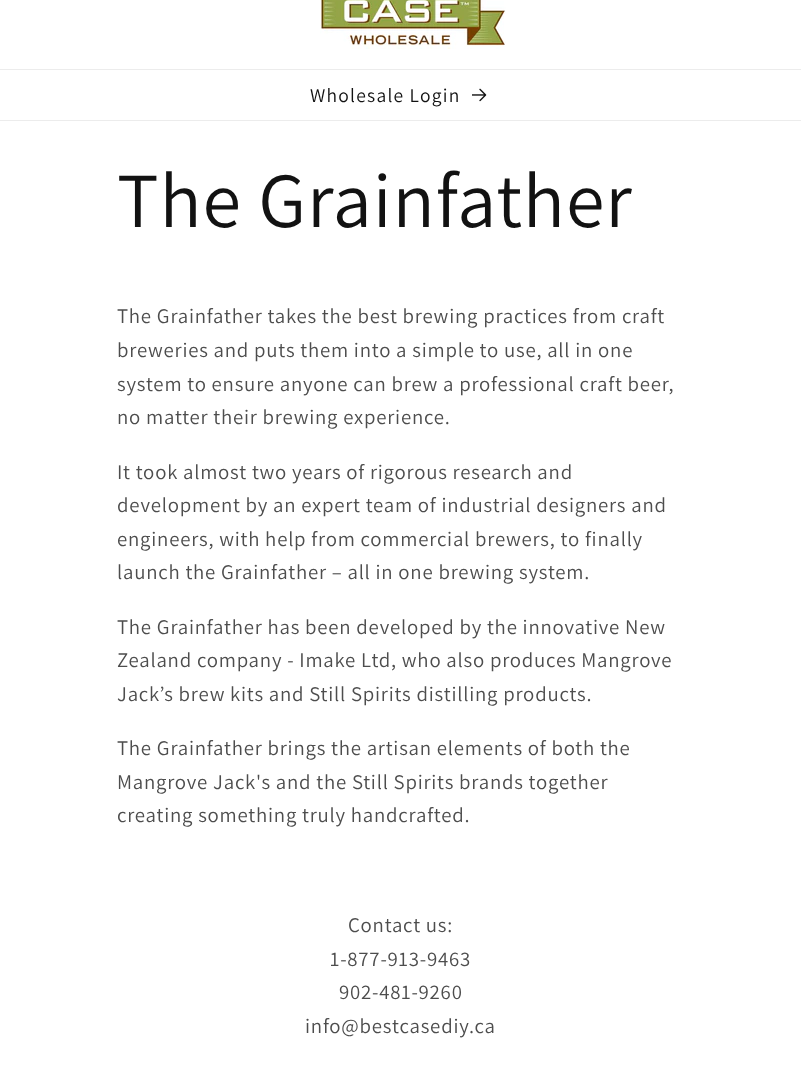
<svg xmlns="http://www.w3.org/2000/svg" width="801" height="1072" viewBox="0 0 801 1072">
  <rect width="100%" height="100%" fill="#ffffff"/>
  <rect x="0" y="69" width="801" height="1" fill="#ececec"/>
  <image x="320" y="0" width="186" height="49" href="img1.png"/>
  <rect x="0" y="120" width="801" height="1" fill="#ececec"/>
  <text x="310" y="102" font-family="Assistant" font-size="19.5" letter-spacing="1.25" fill="#121212">Wholesale Login</text>
  <image x="472" y="88" width="15" height="14" href="img2.png"/>
  <text x="117" y="227" font-family="Assistant" font-size="78" letter-spacing="0.9" fill="#121212">The Grainfather</text>
  <text x="117" y="323" font-family="Assistant" font-size="20.8" letter-spacing="0.78" fill="#4d4d4d">The Grainfather takes the best brewing practices from craft</text>
  <text x="117" y="357" font-family="Assistant" font-size="20.8" letter-spacing="0.78" fill="#4d4d4d">breweries and puts them into a simple to use, all in one</text>
  <text x="117" y="391" font-family="Assistant" font-size="20.8" letter-spacing="0.78" fill="#4d4d4d">system to ensure anyone can brew a professional craft beer,</text>
  <text x="117" y="424" font-family="Assistant" font-size="20.8" letter-spacing="0.78" fill="#4d4d4d">no matter their brewing experience.</text>
  <text x="117" y="479" font-family="Assistant" font-size="20.8" letter-spacing="0.78" fill="#4d4d4d">It took almost two years of rigorous research and</text>
  <text x="117" y="512" font-family="Assistant" font-size="20.8" letter-spacing="0.78" fill="#4d4d4d">development by an expert team of industrial designers and</text>
  <text x="117" y="546" font-family="Assistant" font-size="20.8" letter-spacing="0.78" fill="#4d4d4d">engineers, with help from commercial brewers, to finally</text>
  <text x="117" y="579" font-family="Assistant" font-size="20.8" letter-spacing="0.78" fill="#4d4d4d">launch the Grainfather – all in one brewing system.</text>
  <text x="117" y="634" font-family="Assistant" font-size="20.8" letter-spacing="0.78" fill="#4d4d4d">The Grainfather has been developed by the innovative New</text>
  <text x="117" y="667" font-family="Assistant" font-size="20.8" letter-spacing="0.78" fill="#4d4d4d">Zealand company - Imake Ltd, who also produces Mangrove</text>
  <text x="117" y="701" font-family="Assistant" font-size="20.8" letter-spacing="0.78" fill="#4d4d4d">Jack’s brew kits and Still Spirits distilling products.</text>
  <text x="117" y="755" font-family="Assistant" font-size="20.8" letter-spacing="0.78" fill="#4d4d4d">The Grainfather brings the artisan elements of both the</text>
  <text x="117" y="789" font-family="Assistant" font-size="20.8" letter-spacing="0.78" fill="#4d4d4d">Mangrove Jack's and the Still Spirits brands together</text>
  <text x="117" y="822" font-family="Assistant" font-size="20.8" letter-spacing="0.78" fill="#4d4d4d">creating something truly handcrafted.</text>
  <text x="348" y="932" font-family="Assistant" font-size="20.8" letter-spacing="0.78" fill="#4d4d4d">Contact us:</text>
  <text x="330" y="966" font-family="Assistant" font-size="20.8" letter-spacing="0.78" fill="#4d4d4d">1-877-913-9463</text>
  <text x="339" y="999" font-family="Assistant" font-size="20.8" letter-spacing="0.78" fill="#4d4d4d">902-481-9260</text>
  <text x="305" y="1033" font-family="Assistant" font-size="20.8" letter-spacing="0.78" fill="#4d4d4d">info@bestcasediy.ca</text>
</svg>
